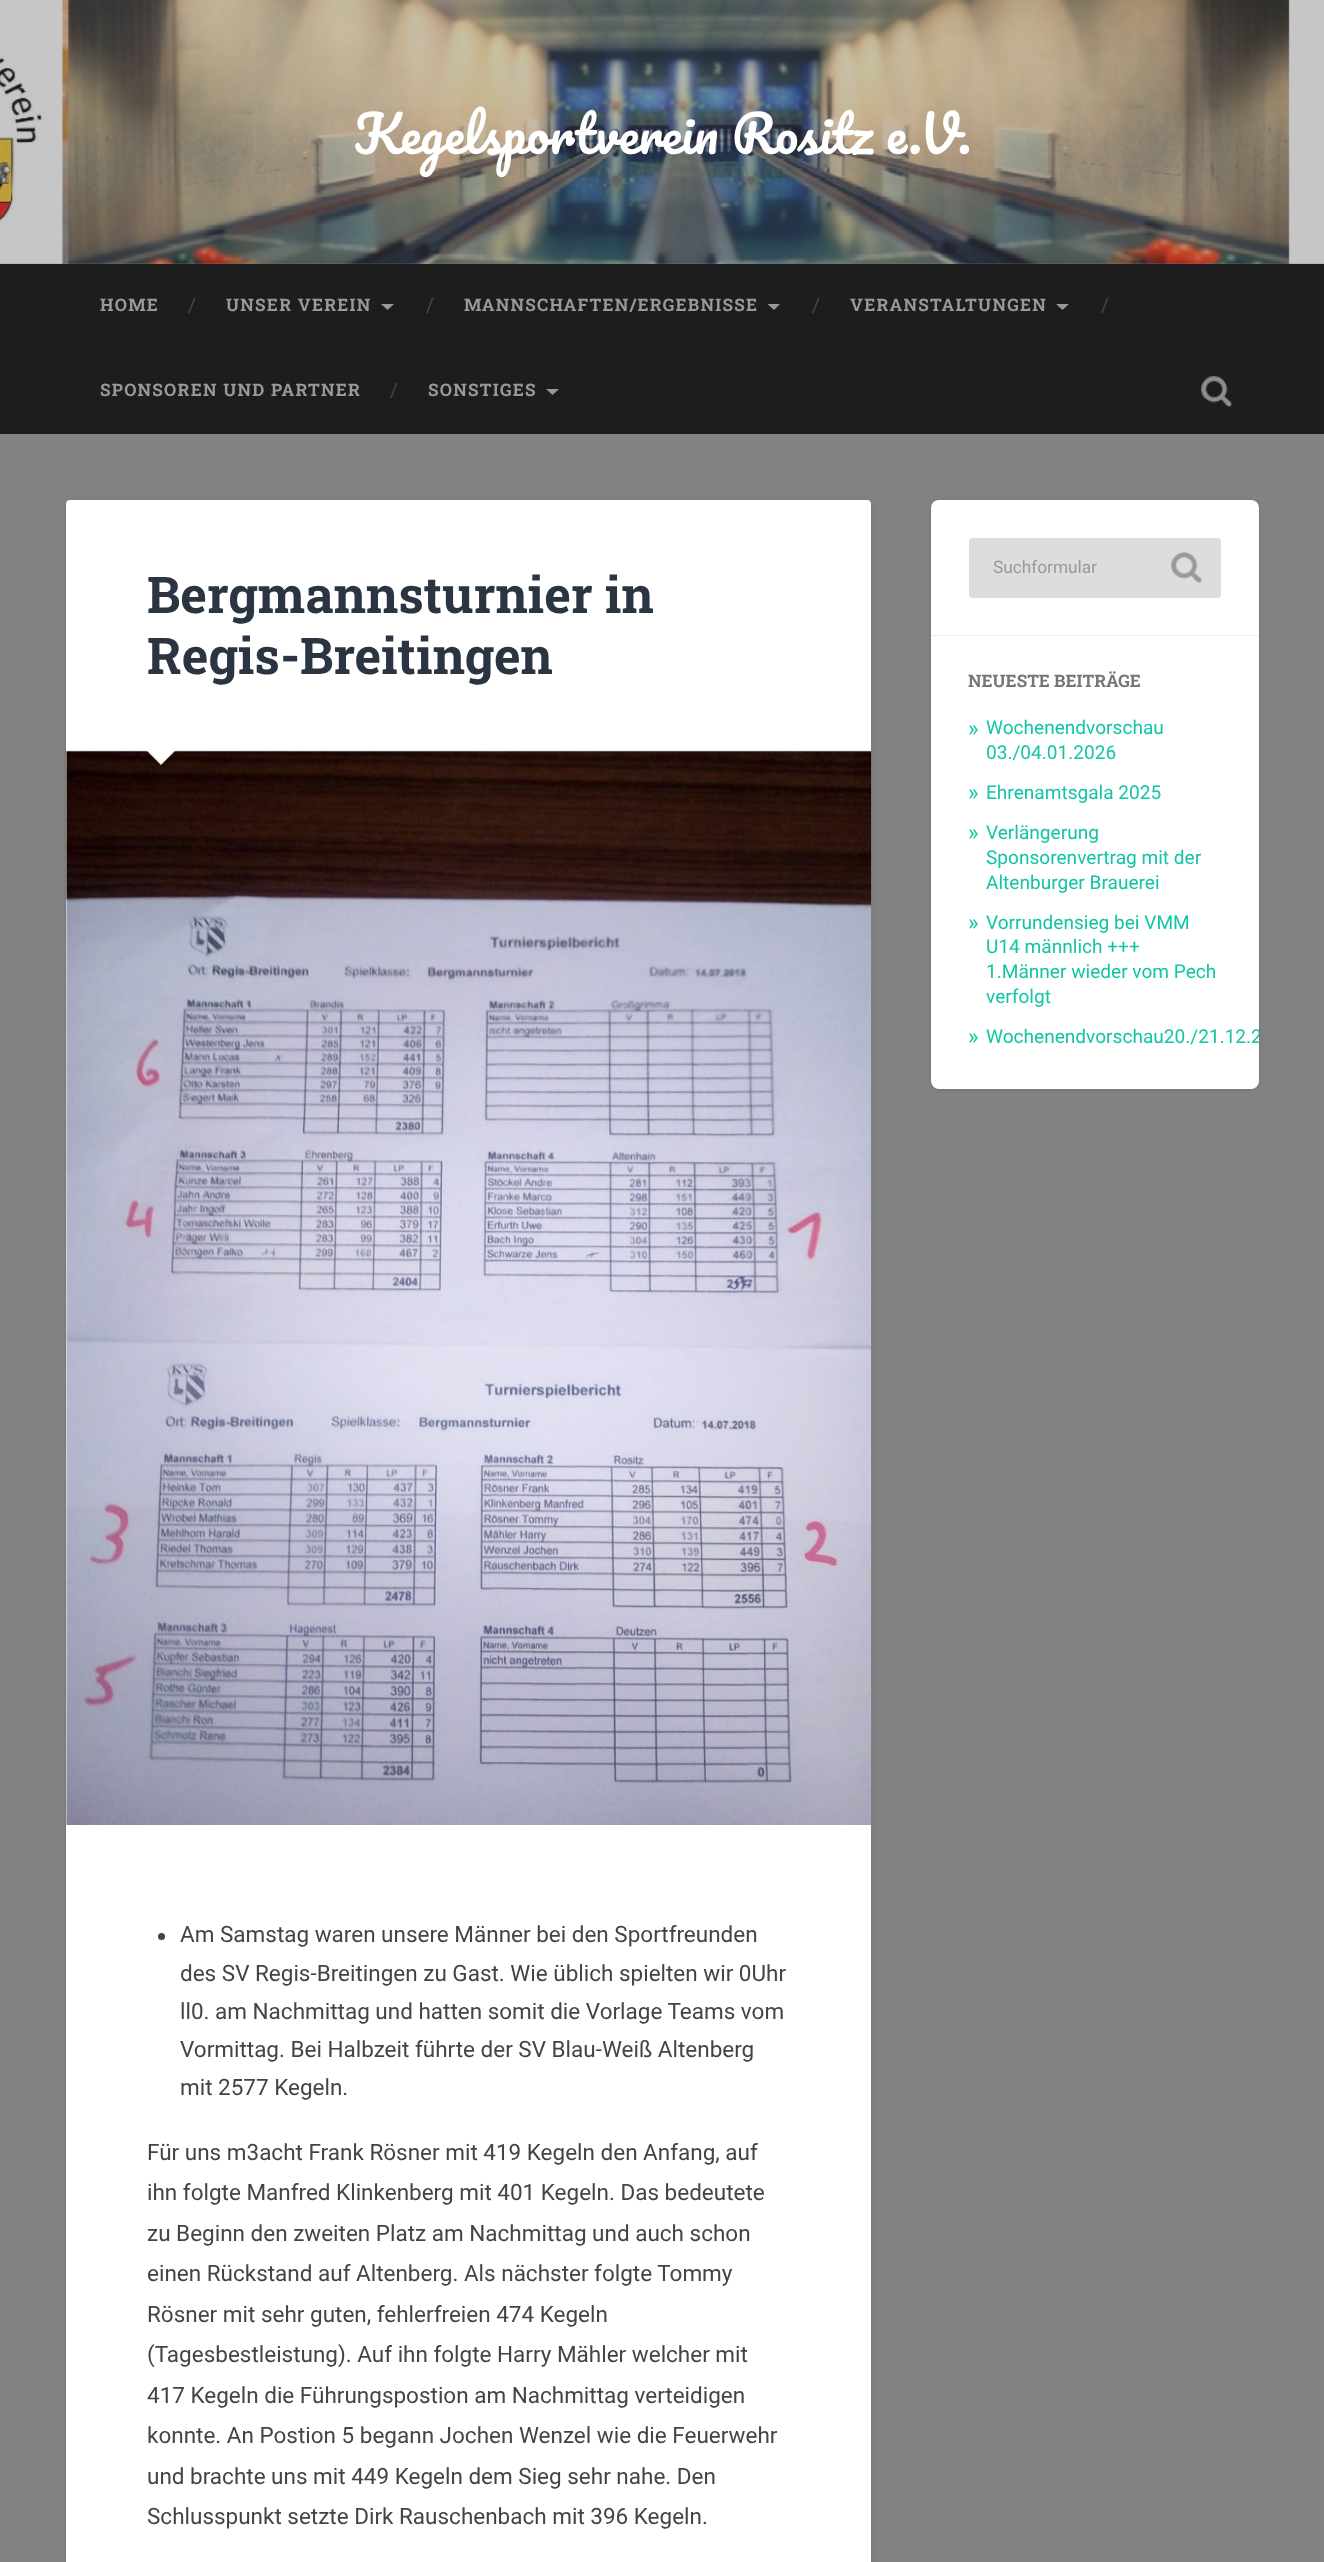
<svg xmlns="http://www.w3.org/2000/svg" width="1324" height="2562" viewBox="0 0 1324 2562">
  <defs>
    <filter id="blur1" x="-50%" y="-200%" width="200%" height="500%"><feGaussianBlur stdDeviation="2.5"/></filter>
    <clipPath id="clip1"><rect x="931" y="500" width="328" height="589" rx="8"/></clipPath>
  </defs>
  <rect width="100%" height="100%" fill="#828282"/>
  <image x="0" y="0" width="1324" height="264" href="img1.png"/>
  <text x="354" y="154" font-family="Pacifico" font-size="50.6" fill="#ffffff">Kegelsportverein Rositz e.V.</text>
  <rect x="0" y="264" width="1324" height="170" fill="#1d1d1d"/>
  <text x="100" y="311" font-family="Roboto Slab" font-size="17.25" font-weight="bold" letter-spacing="1.25" fill="#999999">HOME</text>
  <text x="188" y="312" font-family="Roboto Slab" font-size="20" fill="#444444">/</text>
  <text x="226" y="311" font-family="Roboto Slab" font-size="17.25" font-weight="bold" letter-spacing="1.25" fill="#999999">UNSER VEREIN</text>
  <path d="M381 304H394L387.5 310Z" fill="#999999"/>
  <text x="426" y="312" font-family="Roboto Slab" font-size="20" fill="#444444">/</text>
  <text x="464" y="311" font-family="Roboto Slab" font-size="17.25" font-weight="bold" letter-spacing="1.25" fill="#999999">MANNSCHAFTEN/ERGEBNISSE</text>
  <path d="M767.5 304H780L774 310Z" fill="#999999"/>
  <text x="812" y="312" font-family="Roboto Slab" font-size="20" fill="#444444">/</text>
  <text x="850" y="311" font-family="Roboto Slab" font-size="17.25" font-weight="bold" letter-spacing="1.25" fill="#999999">VERANSTALTUNGEN</text>
  <path d="M1056 304H1069L1062.5 310Z" fill="#999999"/>
  <text x="1101" y="312" font-family="Roboto Slab" font-size="20" fill="#444444">/</text>
  <text x="100" y="396" font-family="Roboto Slab" font-size="17.25" font-weight="bold" letter-spacing="1.25" fill="#999999">SPONSOREN UND PARTNER</text>
  <text x="390" y="397" font-family="Roboto Slab" font-size="20" fill="#444444">/</text>
  <text x="428" y="396" font-family="Roboto Slab" font-size="17.25" font-weight="bold" letter-spacing="1.25" fill="#999999">SONSTIGES</text>
  <path d="M546 389H559L552.5 395Z" fill="#999999"/>
  <image x="1201" y="376" width="31" height="31" href="img2.png"/>
  <rect x="66" y="501" width="805" height="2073" rx="4" fill="#000000" fill-opacity="0.1" filter="url(#blur1)"/>
  <rect x="66" y="500" width="805" height="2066" rx="4" fill="#ffffff"/>
  <rect x="66" y="750" width="805" height="1" fill="#eeeeee"/>
  <text x="147" y="613" font-family="Roboto Slab" font-size="50.6" font-weight="bold" fill="#2b3542">Bergmannsturnier in</text>
  <text x="147" y="674" font-family="Roboto Slab" font-size="50.6" font-weight="bold" fill="#2b3542">Regis-Breitingen</text>
  <image x="66" y="751" width="806" height="1074" href="img3.png"/>
  <path d="M146 750H176L161 765Z" fill="#eeeeee"/>
  <path d="M147.5 749H175L161 762.5Z" fill="#ffffff"/>
  <circle cx="161.5" cy="1936.5" r="3.5" fill="#444444"/>
  <text x="180" y="1942" font-family="Roboto" font-size="22.5" fill="#444444">Am Samstag waren unsere Männer bei den Sportfreunden</text>
  <text x="180" y="1981" font-family="Roboto" font-size="22.5" fill="#444444">des SV Regis-Breitingen zu Gast. Wie üblich spielten wir 0Uhr</text>
  <text x="180" y="2019" font-family="Roboto" font-size="22.5" fill="#444444">ll0. am Nachmittag und hatten somit die Vorlage Teams vom</text>
  <text x="180" y="2057" font-family="Roboto" font-size="22.5" fill="#444444">Vormittag. Bei Halbzeit führte der SV Blau-Weiß Altenberg</text>
  <text x="180" y="2095" font-family="Roboto" font-size="22.5" fill="#444444">mit 2577 Kegeln.</text>
  <text x="147" y="2160" font-family="Roboto" font-size="22.5" fill="#444444">Für uns m3acht Frank Rösner mit 419 Kegeln den Anfang, auf</text>
  <text x="147" y="2200" font-family="Roboto" font-size="22.5" fill="#444444">ihn folgte Manfred Klinkenberg mit 401 Kegeln. Das bedeutete</text>
  <text x="147" y="2241" font-family="Roboto" font-size="22.5" fill="#444444">zu Beginn den zweiten Platz am Nachmittag und auch schon</text>
  <text x="147" y="2281" font-family="Roboto" font-size="22.5" fill="#444444">einen Rückstand auf Altenberg. Als nächster folgte Tommy</text>
  <text x="147" y="2322" font-family="Roboto" font-size="22.5" fill="#444444">Rösner mit sehr guten, fehlerfreien 474 Kegeln</text>
  <text x="147" y="2362" font-family="Roboto" font-size="22.5" fill="#444444">(Tagesbestleistung). Auf ihn folgte Harry Mähler welcher mit</text>
  <text x="147" y="2403" font-family="Roboto" font-size="22.5" fill="#444444">417 Kegeln die Führungspostion am Nachmittag verteidigen</text>
  <text x="147" y="2443" font-family="Roboto" font-size="22.5" fill="#444444">konnte. An Postion 5 begann Jochen Wenzel wie die Feuerwehr</text>
  <text x="147" y="2484" font-family="Roboto" font-size="22.5" fill="#444444">und brachte uns mit 449 Kegeln dem Sieg sehr nahe. Den</text>
  <text x="147" y="2524" font-family="Roboto" font-size="22.5" fill="#444444">Schlusspunkt setzte Dirk Rauschenbach mit 396 Kegeln.</text>
  <rect x="931" y="501" width="328" height="589" rx="8" fill="#000000" fill-opacity="0.1" filter="url(#blur1)"/>
  <rect x="931" y="500" width="328" height="589" rx="8" fill="#ffffff"/>
  <rect x="969" y="538" width="252" height="60" rx="4" fill="#dddddd"/>
  <text x="993" y="573" font-family="Roboto" font-size="17.25" fill="#999999">Suchformular</text>
  <image x="1171" y="552" width="31" height="31" href="img4.png"/>
  <rect x="931" y="635" width="328" height="1" fill="#eeeeee"/>
  <text x="968" y="687" font-family="Roboto Slab" font-size="17.25" font-weight="bold" fill="#767676">NEUESTE BEITRÄGE</text>
  <text x="968" y="736" font-family="Roboto" font-size="22.5" fill="#13c4a5">»</text>
  <text x="986" y="734" font-family="Roboto" font-size="19.1" fill="#13c4a5">Wochenendvorschau</text>
  <text x="986" y="759" font-family="Roboto" font-size="19.1" fill="#13c4a5">03./04.01.2026</text>
  <text x="968" y="800" font-family="Roboto" font-size="22.5" fill="#13c4a5">»</text>
  <text x="986" y="799" font-family="Roboto" font-size="19.1" fill="#13c4a5">Ehrenamtsgala 2025</text>
  <text x="968" y="840" font-family="Roboto" font-size="22.5" fill="#13c4a5">»</text>
  <text x="986" y="839" font-family="Roboto" font-size="19.1" fill="#13c4a5">Verlängerung</text>
  <text x="986" y="864" font-family="Roboto" font-size="19.1" fill="#13c4a5">Sponsorenvertrag mit der</text>
  <text x="986" y="889" font-family="Roboto" font-size="19.1" fill="#13c4a5">Altenburger Brauerei</text>
  <text x="968" y="930" font-family="Roboto" font-size="22.5" fill="#13c4a5">»</text>
  <text x="986" y="929" font-family="Roboto" font-size="19.1" fill="#13c4a5">Vorrundensieg bei VMM</text>
  <text x="986" y="953" font-family="Roboto" font-size="19.1" fill="#13c4a5">U14 männlich +++</text>
  <text x="986" y="978" font-family="Roboto" font-size="19.1" fill="#13c4a5">1.Männer wieder vom Pech</text>
  <text x="986" y="1003" font-family="Roboto" font-size="19.1" fill="#13c4a5">verfolgt</text>
  <text x="968" y="1044" font-family="Roboto" font-size="22.5" fill="#13c4a5">»</text>
  <g clip-path="url(#clip1)">
    <text x="986" y="1043" font-family="Roboto" font-size="19.1" fill="#13c4a5">Wochenendvorschau20./21.12.2</text>
  </g>
</svg>
